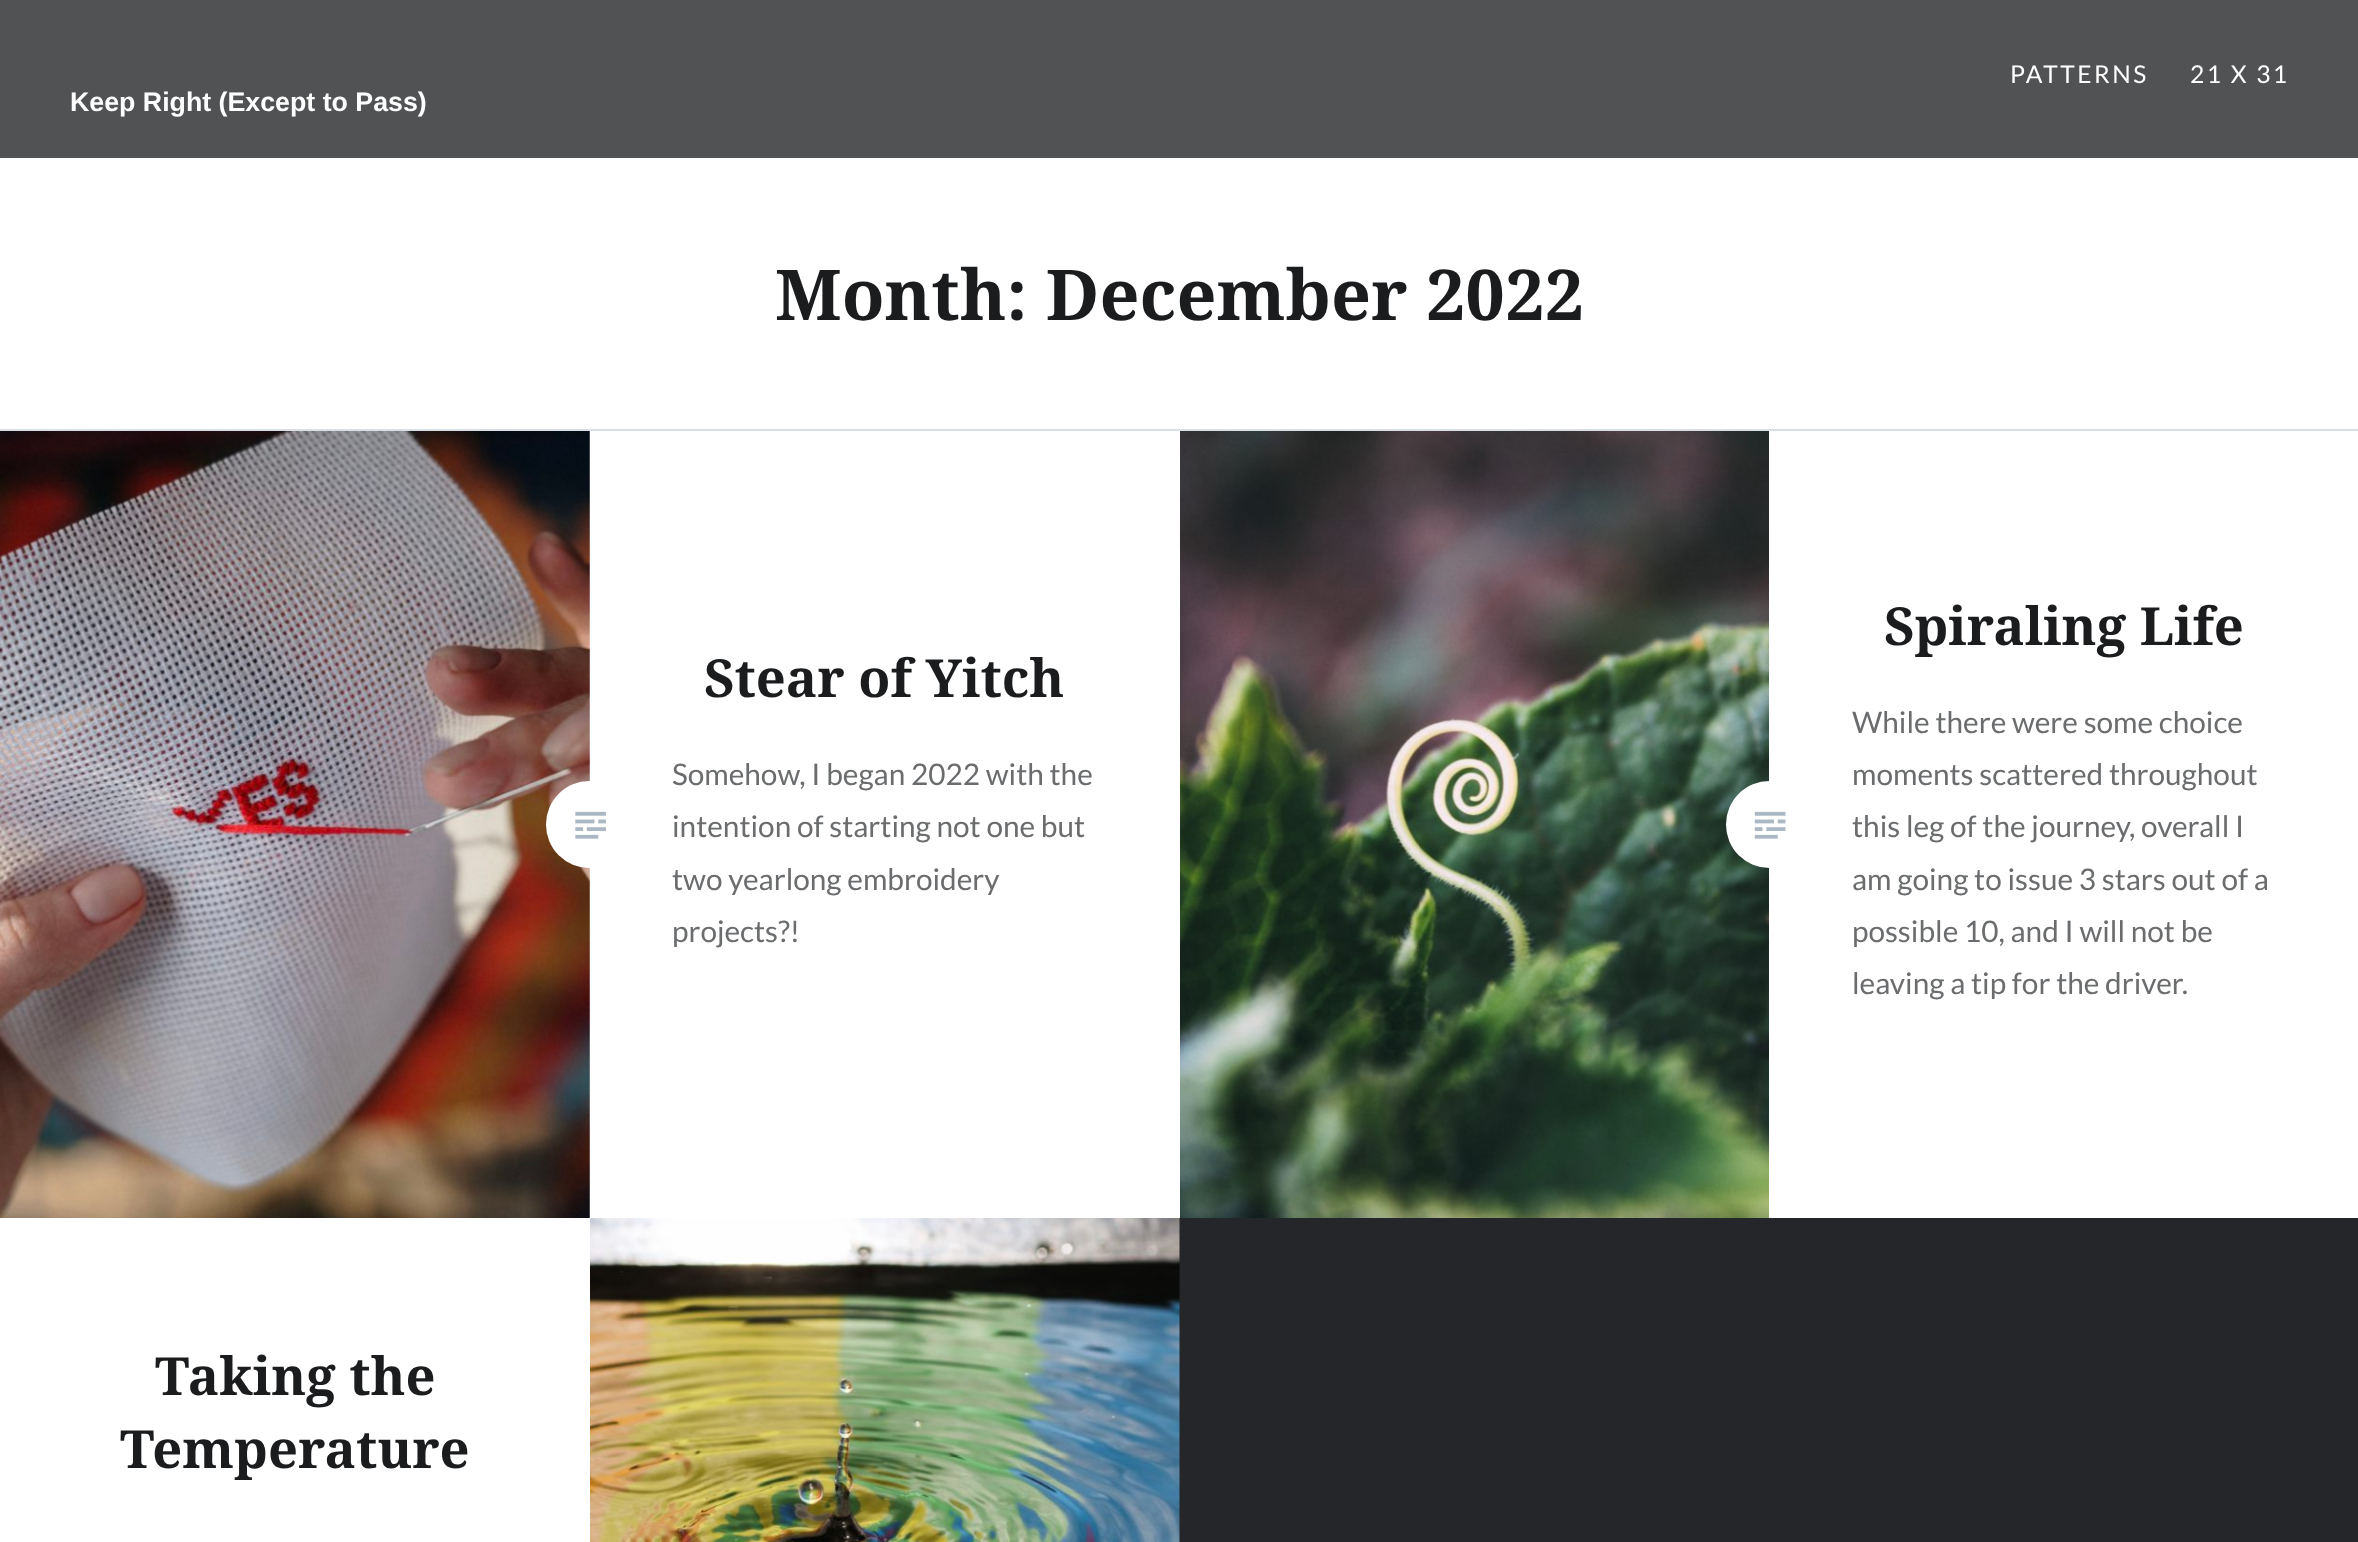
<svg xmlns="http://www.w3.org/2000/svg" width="2358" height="1542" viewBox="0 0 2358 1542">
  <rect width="100%" height="100%" fill="#ffffff"/>
  <rect x="0" y="0" width="2358" height="158" fill="#505254"/>
  <text x="2010" y="83" font-family="Lato" font-size="24.5" letter-spacing="2.5" fill="#ffffff">PATTERNS</text>
  <text x="2190" y="83" font-family="Lato" font-size="24.5" letter-spacing="2.5" fill="#ffffff">21 X 31</text>
  <text x="70" y="111" font-family="Liberation Sans" font-size="26.75" font-weight="bold" fill="#ffffff">Keep Right (Except to Pass)</text>
  <rect x="1179" y="1218" width="1179" height="324" fill="#242629"/>
  <rect x="0" y="429" width="2358" height="2" fill="#d9dfe5"/>
  <text x="775" y="320" font-family="Noto Serif" font-size="70" font-weight="bold" fill="#1a1c1e">Month: December 2022</text>
  <image x="0" y="431" width="590" height="787" href="img1.png"/>
  <rect x="546" y="781" width="88" height="87" rx="43.5" fill="#ffffff"/>
  <text x="704" y="697" font-family="Noto Serif" font-size="52.5" font-weight="bold" fill="#1a1c1e">Stear of Yitch</text>
  <text x="672" y="785" font-family="Lato" font-size="29.75" fill="#6a6c6e">Somehow, I began 2022 with the</text>
  <text x="672" y="837" font-family="Lato" font-size="29.75" fill="#6a6c6e">intention of starting not one but</text>
  <text x="672" y="890" font-family="Lato" font-size="29.75" fill="#6a6c6e">two yearlong embroidery</text>
  <text x="672" y="942" font-family="Lato" font-size="29.75" fill="#6a6c6e">projects?!</text>
  <image x="575" y="811" width="31" height="28" href="img2.png"/>
  <image x="1180" y="431" width="589" height="787" href="img3.png"/>
  <circle cx="1769.5" cy="824.5" r="43.5" fill="#ffffff"/>
  <text x="1884" y="645" font-family="Noto Serif" font-size="52.5" font-weight="bold" fill="#1a1c1e">Spiraling Life</text>
  <text x="1852" y="733" font-family="Lato" font-size="29.75" fill="#6a6c6e">While there were some choice</text>
  <text x="1852" y="785" font-family="Lato" font-size="29.75" fill="#6a6c6e">moments scattered throughout</text>
  <text x="1852" y="837" font-family="Lato" font-size="29.75" fill="#6a6c6e">this leg of the journey, overall I</text>
  <text x="1852" y="890" font-family="Lato" font-size="29.75" fill="#6a6c6e">am going to issue 3 stars out of a</text>
  <text x="1852" y="942" font-family="Lato" font-size="29.75" fill="#6a6c6e">possible 10, and I will not be</text>
  <text x="1852" y="994" font-family="Lato" font-size="29.75" fill="#6a6c6e">leaving a tip for the driver.</text>
  <image x="1754" y="811" width="32" height="28" href="img4.png"/>
  <text x="155" y="1395" font-family="Noto Serif" font-size="52.5" font-weight="bold" fill="#1a1c1e">Taking the</text>
  <text x="120" y="1468" font-family="Noto Serif" font-size="52.5" font-weight="bold" fill="#1a1c1e">Temperature</text>
  <image x="590" y="1218" width="590" height="324" href="img5.png"/>
</svg>
